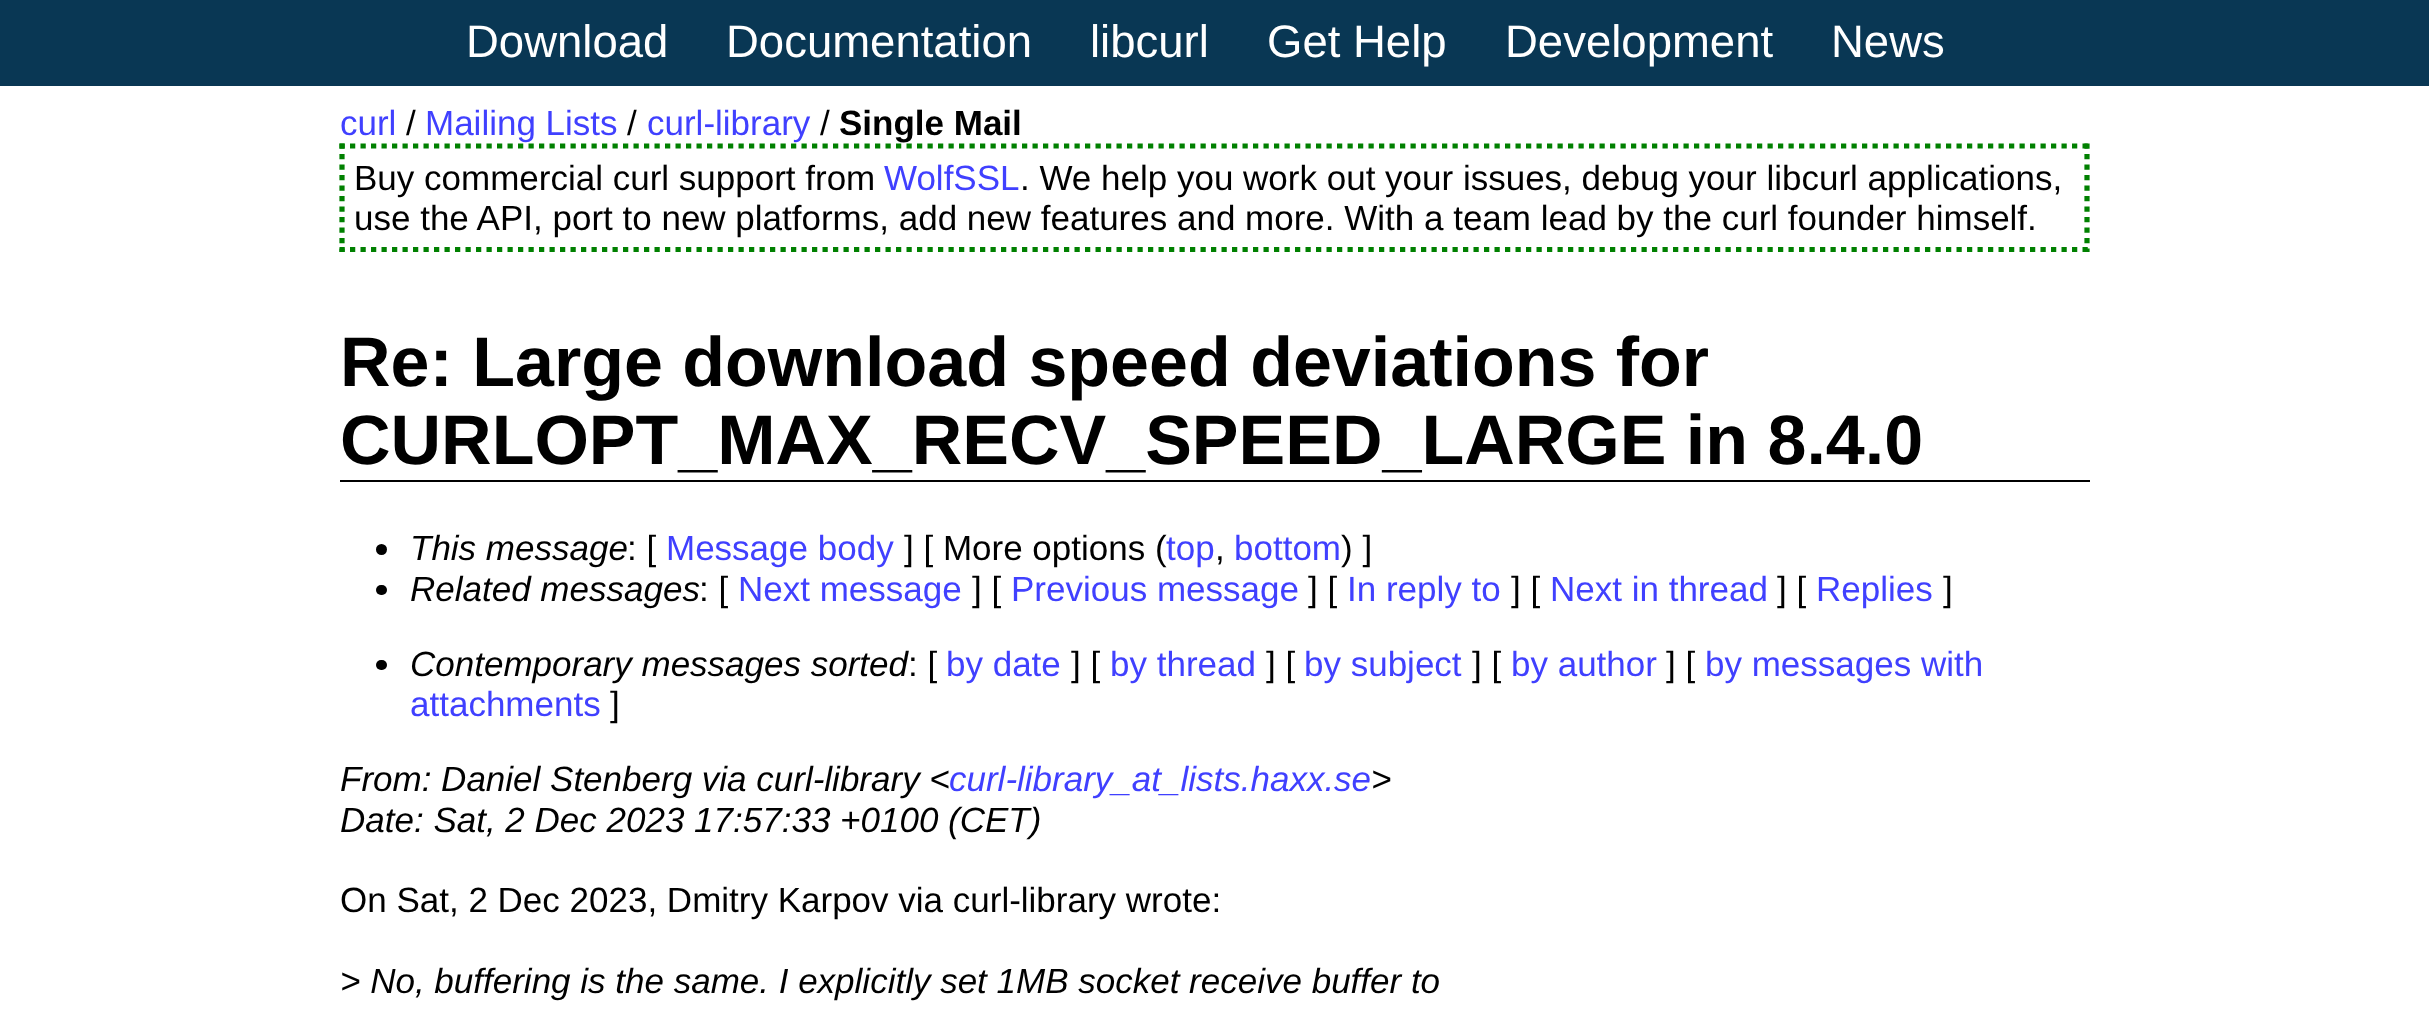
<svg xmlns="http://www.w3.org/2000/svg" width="2429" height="1025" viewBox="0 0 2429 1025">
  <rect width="100%" height="100%" fill="#ffffff"/>
  <rect x="0" y="0" width="2429" height="86" fill="#093754"/>
  <text x="466" y="57" font-family="Liberation Sans" font-size="45.5" fill="#ffffff">Download</text>
  <text x="726" y="57" font-family="Liberation Sans" font-size="45.5" fill="#ffffff">Documentation</text>
  <text x="1090" y="57" font-family="Liberation Sans" font-size="45.5" fill="#ffffff">libcurl</text>
  <text x="1267" y="57" font-family="Liberation Sans" font-size="45.5" fill="#ffffff">Get Help</text>
  <text x="1505" y="57" font-family="Liberation Sans" font-size="45.5" fill="#ffffff">Development</text>
  <text x="1831" y="57" font-family="Liberation Sans" font-size="45.5" fill="#ffffff">News</text>
  <text x="340" y="135" font-family="Liberation Sans" font-size="35" fill="#4040ff">curl</text>
  <text x="406" y="135" font-family="Liberation Sans" font-size="35" fill="#000000">/</text>
  <text x="425" y="135" font-family="Liberation Sans" font-size="35" fill="#4040ff">Mailing Lists</text>
  <text x="627" y="135" font-family="Liberation Sans" font-size="35" fill="#000000">/</text>
  <text x="647" y="135" font-family="Liberation Sans" font-size="35" fill="#4040ff">curl-library</text>
  <text x="820" y="135" font-family="Liberation Sans" font-size="35" fill="#000000">/</text>
  <text x="839" y="135" font-family="Liberation Sans" font-size="35" font-weight="bold" fill="#000000">Single Mail</text>
  <path d="M339.5 146H2089.5" fill="none" stroke="#008000" stroke-width="5.2" stroke-dasharray="5.25 5.25"/>
  <path d="M2087 143.5V252" fill="none" stroke="#008000" stroke-width="5.2" stroke-dasharray="5.25 5.25"/>
  <path d="M339.5 249.5H2089.5" fill="none" stroke="#008000" stroke-width="5.2" stroke-dasharray="5.25 5.25"/>
  <path d="M342 143.5V252" fill="none" stroke="#008000" stroke-width="5.2" stroke-dasharray="5.25 5.25"/>
  <text x="354" y="190" font-family="Liberation Sans" font-size="35" fill="#000000">Buy commercial curl support from</text>
  <text x="884" y="190" font-family="Liberation Sans" font-size="35" fill="#4040ff">WolfSSL</text>
  <text x="1020" y="190" font-family="Liberation Sans" font-size="35" fill="#000000">. We help you work out your issues, debug your libcurl applications,</text>
  <text x="354" y="230" font-family="Liberation Sans" font-size="35" fill="#000000">use the API, port to new platforms, add new features and more. With a team lead by the curl founder himself.</text>
  <rect x="340" y="480" width="1750" height="2" fill="#000000"/>
  <text x="340" y="386" font-family="Liberation Sans" font-size="70" font-weight="bold" fill="#000000">Re: Large download speed deviations for</text>
  <text x="340" y="464" font-family="Liberation Sans" font-size="70" font-weight="bold" fill="#000000">CURLOPT_MAX_RECV_SPEED_LARGE in 8.4.0</text>
  <circle cx="381.5" cy="549.5" r="5.5" fill="#000000"/>
  <text x="410" y="560" font-family="Liberation Sans" font-size="35" font-style="italic" fill="#000000">This message</text>
  <text x="627" y="560" font-family="Liberation Sans" font-size="35" fill="#000000">: [</text>
  <text x="666" y="560" font-family="Liberation Sans" font-size="35" fill="#4040ff">Message body</text>
  <text x="904" y="560" font-family="Liberation Sans" font-size="35" fill="#000000">] [ More options (</text>
  <text x="1166" y="560" font-family="Liberation Sans" font-size="35" fill="#4040ff">top</text>
  <text x="1234" y="560" font-family="Liberation Sans" font-size="35" fill="#4040ff">bottom</text>
  <text x="1341" y="560" font-family="Liberation Sans" font-size="35" fill="#000000">) ]</text>
  <text x="1215" y="560" font-family="Liberation Sans" font-size="35" fill="#000000">,</text>
  <rect x="376" y="585" width="11" height="10" rx="5" fill="#000000"/>
  <text x="410" y="601" font-family="Liberation Sans" font-size="35" font-style="italic" fill="#000000">Related messages</text>
  <text x="699" y="601" font-family="Liberation Sans" font-size="35" fill="#000000">: [</text>
  <text x="738" y="601" font-family="Liberation Sans" font-size="35" fill="#4040ff">Next message</text>
  <text x="972" y="601" font-family="Liberation Sans" font-size="35" fill="#000000">] [</text>
  <text x="1011" y="601" font-family="Liberation Sans" font-size="35" fill="#4040ff">Previous message</text>
  <text x="1308" y="601" font-family="Liberation Sans" font-size="35" fill="#000000">] [</text>
  <text x="1347" y="601" font-family="Liberation Sans" font-size="35" fill="#4040ff">In reply to</text>
  <text x="1511" y="601" font-family="Liberation Sans" font-size="35" fill="#000000">] [</text>
  <text x="1550" y="601" font-family="Liberation Sans" font-size="35" fill="#4040ff">Next in thread</text>
  <text x="1777" y="601" font-family="Liberation Sans" font-size="35" fill="#000000">] [</text>
  <text x="1816" y="601" font-family="Liberation Sans" font-size="35" fill="#4040ff">Replies</text>
  <text x="1943" y="601" font-family="Liberation Sans" font-size="35" fill="#000000">]</text>
  <rect x="376" y="660" width="11" height="10" rx="5" fill="#000000"/>
  <text x="410" y="676" font-family="Liberation Sans" font-size="35" font-style="italic" fill="#000000">Contemporary messages sorted</text>
  <text x="908" y="676" font-family="Liberation Sans" font-size="35" fill="#000000">: [</text>
  <text x="946" y="676" font-family="Liberation Sans" font-size="35" fill="#4040ff">by date</text>
  <text x="1071" y="676" font-family="Liberation Sans" font-size="35" fill="#000000">] [</text>
  <text x="1110" y="676" font-family="Liberation Sans" font-size="35" fill="#4040ff">by thread</text>
  <text x="1266" y="676" font-family="Liberation Sans" font-size="35" fill="#000000">] [</text>
  <text x="1304" y="676" font-family="Liberation Sans" font-size="35" fill="#4040ff">by subject</text>
  <text x="1472" y="676" font-family="Liberation Sans" font-size="35" fill="#000000">] [</text>
  <text x="1511" y="676" font-family="Liberation Sans" font-size="35" fill="#4040ff">by author</text>
  <text x="1666" y="676" font-family="Liberation Sans" font-size="35" fill="#000000">] [</text>
  <text x="1705" y="676" font-family="Liberation Sans" font-size="35" fill="#4040ff">by messages with</text>
  <text x="410" y="716" font-family="Liberation Sans" font-size="35" fill="#4040ff">attachments</text>
  <text x="610" y="716" font-family="Liberation Sans" font-size="35" fill="#000000">]</text>
  <text x="340" y="791" font-family="Liberation Sans" font-size="35" font-style="italic" fill="#000000">From: Daniel Stenberg via curl-library &lt;</text>
  <text x="949" y="791" font-family="Liberation Sans" font-size="35" font-style="italic" fill="#4040ff">curl-library_at_lists.haxx.se</text>
  <text x="1371" y="791" font-family="Liberation Sans" font-size="35" font-style="italic" fill="#000000">&gt;</text>
  <text x="340" y="832" font-family="Liberation Sans" font-size="35" font-style="italic" fill="#000000">Date: Sat, 2 Dec 2023 17:57:33 +0100 (CET)</text>
  <text x="340" y="912" font-family="Liberation Sans" font-size="35" fill="#000000">On Sat, 2 Dec 2023, Dmitry Karpov via curl-library wrote:</text>
  <text x="340" y="993" font-family="Liberation Sans" font-size="35" font-style="italic" fill="#000000">&gt; No, buffering is the same. I explicitly set 1MB socket receive buffer to</text>
</svg>
